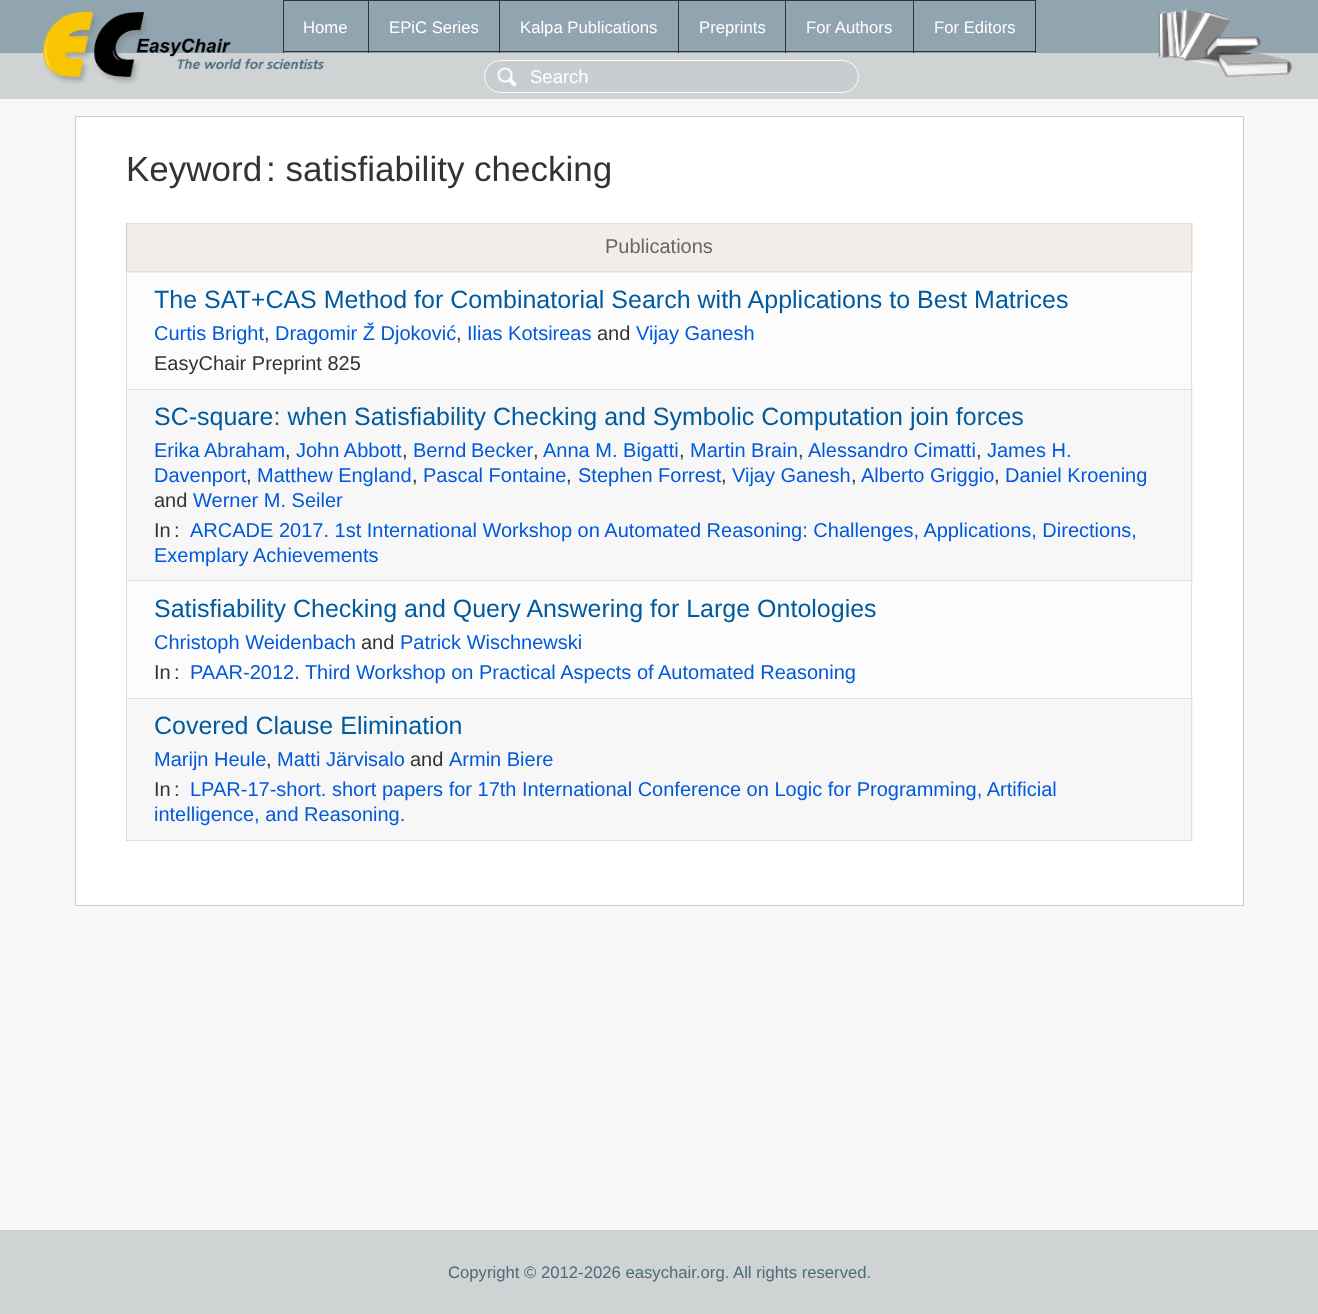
<svg xmlns="http://www.w3.org/2000/svg" width="1318" height="1314" viewBox="0 0 1318 1314">
  <rect width="100%" height="100%" fill="#90a5b0"/>
  <rect x="0" y="53" width="1318" height="46" fill="#d0d3d4"/>
  <image x="43" y="11" width="281" height="73" href="img1.png"/>
  <rect x="913" y="0" width="123" height="1" fill="#333333"/>
  <rect x="1035" y="0" width="1" height="53" fill="#333333"/>
  <rect x="913" y="51" width="123" height="1" fill="#333333"/>
  <rect x="913" y="0" width="1" height="53" fill="#333333"/>
  <rect x="785" y="0" width="129" height="1" fill="#333333"/>
  <rect x="785" y="51" width="129" height="1" fill="#333333"/>
  <rect x="785" y="0" width="1" height="53" fill="#333333"/>
  <rect x="678" y="0" width="108" height="1" fill="#333333"/>
  <rect x="678" y="51" width="108" height="1" fill="#333333"/>
  <rect x="678" y="0" width="1" height="53" fill="#333333"/>
  <rect x="499" y="0" width="180" height="1" fill="#333333"/>
  <rect x="499" y="51" width="180" height="1" fill="#333333"/>
  <rect x="499" y="0" width="1" height="53" fill="#333333"/>
  <rect x="368" y="0" width="132" height="1" fill="#333333"/>
  <rect x="368" y="51" width="132" height="1" fill="#333333"/>
  <rect x="368" y="0" width="1" height="53" fill="#333333"/>
  <rect x="283" y="0" width="86" height="1" fill="#333333"/>
  <rect x="283" y="51" width="86" height="1" fill="#333333"/>
  <rect x="283" y="0" width="1" height="53" fill="#333333"/>
  <text x="303" y="33" font-family="Liberation Sans" font-size="16.7" fill="#ffffff">Home</text>
  <text x="389" y="33" font-family="Liberation Sans" font-size="16.7" fill="#ffffff">EPiC Series</text>
  <text x="520" y="33" font-family="Liberation Sans" font-size="16.7" fill="#ffffff">Kalpa Publications</text>
  <text x="699" y="33" font-family="Liberation Sans" font-size="16.7" fill="#ffffff">Preprints</text>
  <text x="806" y="33" font-family="Liberation Sans" font-size="16.7" fill="#ffffff">For Authors</text>
  <text x="934" y="33" font-family="Liberation Sans" font-size="16.7" fill="#ffffff">For Editors</text>
  <image x="1158" y="8" width="134" height="69" href="img2.png"/>
  <rect x="484" y="60" width="375" height="33" rx="16.5" fill="#c9cdd0"/>
  <image x="497" y="67" width="20" height="20" href="img3.png"/>
  <rect x="484.5" y="60.5" width="374" height="32" rx="16" fill="none" stroke="#ffffff"/>
  <text x="530" y="83" font-family="Liberation Sans" font-size="18.5" fill="#ffffff">Search</text>
  <rect x="0" y="99" width="1318" height="1131" fill="#f8f8f8"/>
  <rect x="75.5" y="116.5" width="1168" height="789" fill="#ffffff" stroke="#cccccc"/>
  <text x="126" y="181" font-family="Liberation Sans" font-size="35" fill="#333333">Keyword</text>
  <text x="266" y="181" font-family="Liberation Sans" font-size="35" fill="#333333">: satisfiability checking</text>
  <rect x="126" y="223" width="1067" height="1" fill="#dedede"/>
  <rect x="127" y="224" width="1066" height="49" fill="#f2ede9"/>
  <rect x="127" y="273" width="1066" height="116" fill="#fcfcfc"/>
  <rect x="127" y="390" width="1066" height="190" fill="#f7f7f7"/>
  <rect x="127" y="581" width="1066" height="117" fill="#fcfcfc"/>
  <rect x="127" y="699" width="1066" height="141" fill="#f7f7f7"/>
  <rect x="1191" y="223" width="1" height="618" fill="#dedede"/>
  <rect x="126" y="840" width="1067" height="1" fill="#dedede"/>
  <rect x="126" y="273" width="1" height="568" fill="#dedede"/>
  <rect x="126" y="271" width="1067" height="1" fill="#dedede"/>
  <rect x="126" y="223" width="1" height="50" fill="#cccccc"/>
  <text x="605" y="253" font-family="Liberation Sans" font-size="20" fill="#666666">Publications</text>
  <rect x="126" y="389" width="1067" height="1" fill="#dedede"/>
  <text x="154" y="308" font-family="Liberation Sans" font-size="25" fill="#005a9f">The SAT+CAS Method for Combinatorial Search with Applications to Best Matrices</text>
  <text x="154" y="340" font-family="Liberation Sans" font-size="20" fill="#0059db">Curtis Bright</text>
  <text x="264" y="340" font-family="Liberation Sans" font-size="20" fill="#333333">,</text>
  <text x="275" y="340" font-family="Liberation Sans" font-size="20" fill="#0059db">Dragomir Ž Djoković</text>
  <text x="456" y="340" font-family="Liberation Sans" font-size="20" fill="#333333">,</text>
  <text x="467" y="340" font-family="Liberation Sans" font-size="20" fill="#0059db">Ilias Kotsireas</text>
  <text x="597" y="340" font-family="Liberation Sans" font-size="20" fill="#333333">and</text>
  <text x="636" y="340" font-family="Liberation Sans" font-size="20" fill="#0059db">Vijay Ganesh</text>
  <text x="154" y="370" font-family="Liberation Sans" font-size="20" fill="#333333">EasyChair Preprint 825</text>
  <rect x="126" y="580" width="1067" height="1" fill="#dedede"/>
  <text x="154" y="425" font-family="Liberation Sans" font-size="25" fill="#005a9f">SC-square: when Satisfiability Checking and Symbolic Computation join forces</text>
  <text x="154" y="457" font-family="Liberation Sans" font-size="20" fill="#0059db">Erika Abraham</text>
  <text x="285" y="457" font-family="Liberation Sans" font-size="20" fill="#333333">,</text>
  <text x="296" y="457" font-family="Liberation Sans" font-size="20" fill="#0059db">John Abbott</text>
  <text x="402" y="457" font-family="Liberation Sans" font-size="20" fill="#333333">,</text>
  <text x="413" y="457" word-spacing="-1" font-family="Liberation Sans" font-size="20" fill="#0059db">Bernd Becker</text>
  <text x="533" y="457" font-family="Liberation Sans" font-size="20" fill="#333333">,</text>
  <text x="543" y="457" font-family="Liberation Sans" font-size="20" fill="#0059db">Anna M. Bigatti</text>
  <text x="679" y="457" font-family="Liberation Sans" font-size="20" fill="#333333">,</text>
  <text x="690" y="457" font-family="Liberation Sans" font-size="20" fill="#0059db">Martin Brain</text>
  <text x="798" y="457" font-family="Liberation Sans" font-size="20" fill="#333333">,</text>
  <text x="808" y="457" font-family="Liberation Sans" font-size="20" fill="#0059db">Alessandro Cimatti</text>
  <text x="976" y="457" font-family="Liberation Sans" font-size="20" fill="#333333">,</text>
  <text x="987" y="457" font-family="Liberation Sans" font-size="20" fill="#0059db">James H.</text>
  <text x="154" y="482" font-family="Liberation Sans" font-size="20" fill="#0059db">Davenport</text>
  <text x="246" y="482" font-family="Liberation Sans" font-size="20" fill="#333333">,</text>
  <text x="257" y="482" font-family="Liberation Sans" font-size="20" fill="#0059db">Matthew England</text>
  <text x="412" y="482" font-family="Liberation Sans" font-size="20" fill="#333333">,</text>
  <text x="423" y="482" font-family="Liberation Sans" font-size="20" fill="#0059db">Pascal Fontaine</text>
  <text x="566" y="482" font-family="Liberation Sans" font-size="20" fill="#333333">,</text>
  <text x="578" y="482" font-family="Liberation Sans" font-size="20" fill="#0059db">Stephen Forrest</text>
  <text x="721" y="482" font-family="Liberation Sans" font-size="20" fill="#333333">,</text>
  <text x="732" y="482" font-family="Liberation Sans" font-size="20" fill="#0059db">Vijay Ganesh</text>
  <text x="851" y="482" font-family="Liberation Sans" font-size="20" fill="#333333">,</text>
  <text x="861" y="482" font-family="Liberation Sans" font-size="20" fill="#0059db">Alberto Griggio</text>
  <text x="994" y="482" font-family="Liberation Sans" font-size="20" fill="#333333">,</text>
  <text x="1005" y="482" font-family="Liberation Sans" font-size="20" fill="#0059db">Daniel Kroening</text>
  <text x="154" y="507" font-family="Liberation Sans" font-size="20" fill="#333333">and</text>
  <text x="193" y="507" font-family="Liberation Sans" font-size="20" fill="#0059db">Werner M. Seiler</text>
  <text x="154" y="537" font-family="Liberation Sans" font-size="20" fill="#333333">In</text>
  <text x="174" y="537" font-family="Liberation Sans" font-size="20" fill="#333333">:</text>
  <text x="190" y="537" font-family="Liberation Sans" font-size="20" fill="#0059db">ARCADE 2017. 1st International Workshop on Automated Reasoning: Challenges, Applications, Directions,</text>
  <text x="154" y="562" font-family="Liberation Sans" font-size="20" fill="#0059db">Exemplary Achievements</text>
  <rect x="126" y="698" width="1067" height="1" fill="#dedede"/>
  <text x="154" y="617" font-family="Liberation Sans" font-size="25" fill="#005a9f">Satisfiability Checking and Query Answering for Large Ontologies</text>
  <text x="154" y="649" font-family="Liberation Sans" font-size="20" fill="#0059db">Christoph Weidenbach</text>
  <text x="361" y="649" font-family="Liberation Sans" font-size="20" fill="#333333">and</text>
  <text x="400" y="649" font-family="Liberation Sans" font-size="20" fill="#0059db">Patrick Wischnewski</text>
  <text x="154" y="679" font-family="Liberation Sans" font-size="20" fill="#333333">In</text>
  <text x="174" y="679" font-family="Liberation Sans" font-size="20" fill="#333333">:</text>
  <text x="190" y="679" font-family="Liberation Sans" font-size="20" fill="#0059db">PAAR-2012. Third Workshop on Practical Aspects of Automated Reasoning</text>
  <text x="154" y="734" font-family="Liberation Sans" font-size="25" fill="#005a9f">Covered Clause Elimination</text>
  <text x="154" y="766" font-family="Liberation Sans" font-size="20" fill="#0059db">Marijn Heule</text>
  <text x="266" y="766" font-family="Liberation Sans" font-size="20" fill="#333333">,</text>
  <text x="277" y="766" font-family="Liberation Sans" font-size="20" fill="#0059db">Matti Järvisalo</text>
  <text x="410" y="766" font-family="Liberation Sans" font-size="20" fill="#333333">and</text>
  <text x="449" y="766" font-family="Liberation Sans" font-size="20" fill="#0059db">Armin Biere</text>
  <text x="154" y="796" font-family="Liberation Sans" font-size="20" fill="#333333">In</text>
  <text x="174" y="796" font-family="Liberation Sans" font-size="20" fill="#333333">:</text>
  <text x="190" y="796" font-family="Liberation Sans" font-size="20" fill="#0059db">LPAR-17-short. short papers for 17th International Conference on Logic for Programming, Artificial</text>
  <text x="154" y="821" font-family="Liberation Sans" font-size="20" fill="#0059db">intelligence, and Reasoning.</text>
  <rect x="0" y="1231" width="1318" height="83" fill="#d0d3d4"/>
  <rect x="0" y="1230" width="1318" height="1" fill="#cccccc"/>
  <text x="448" y="1278" font-family="Liberation Sans" font-size="16.7" fill="#4c6c7c">Copyright © 2012-2026 easychair.org. All rights reserved.</text>
</svg>
